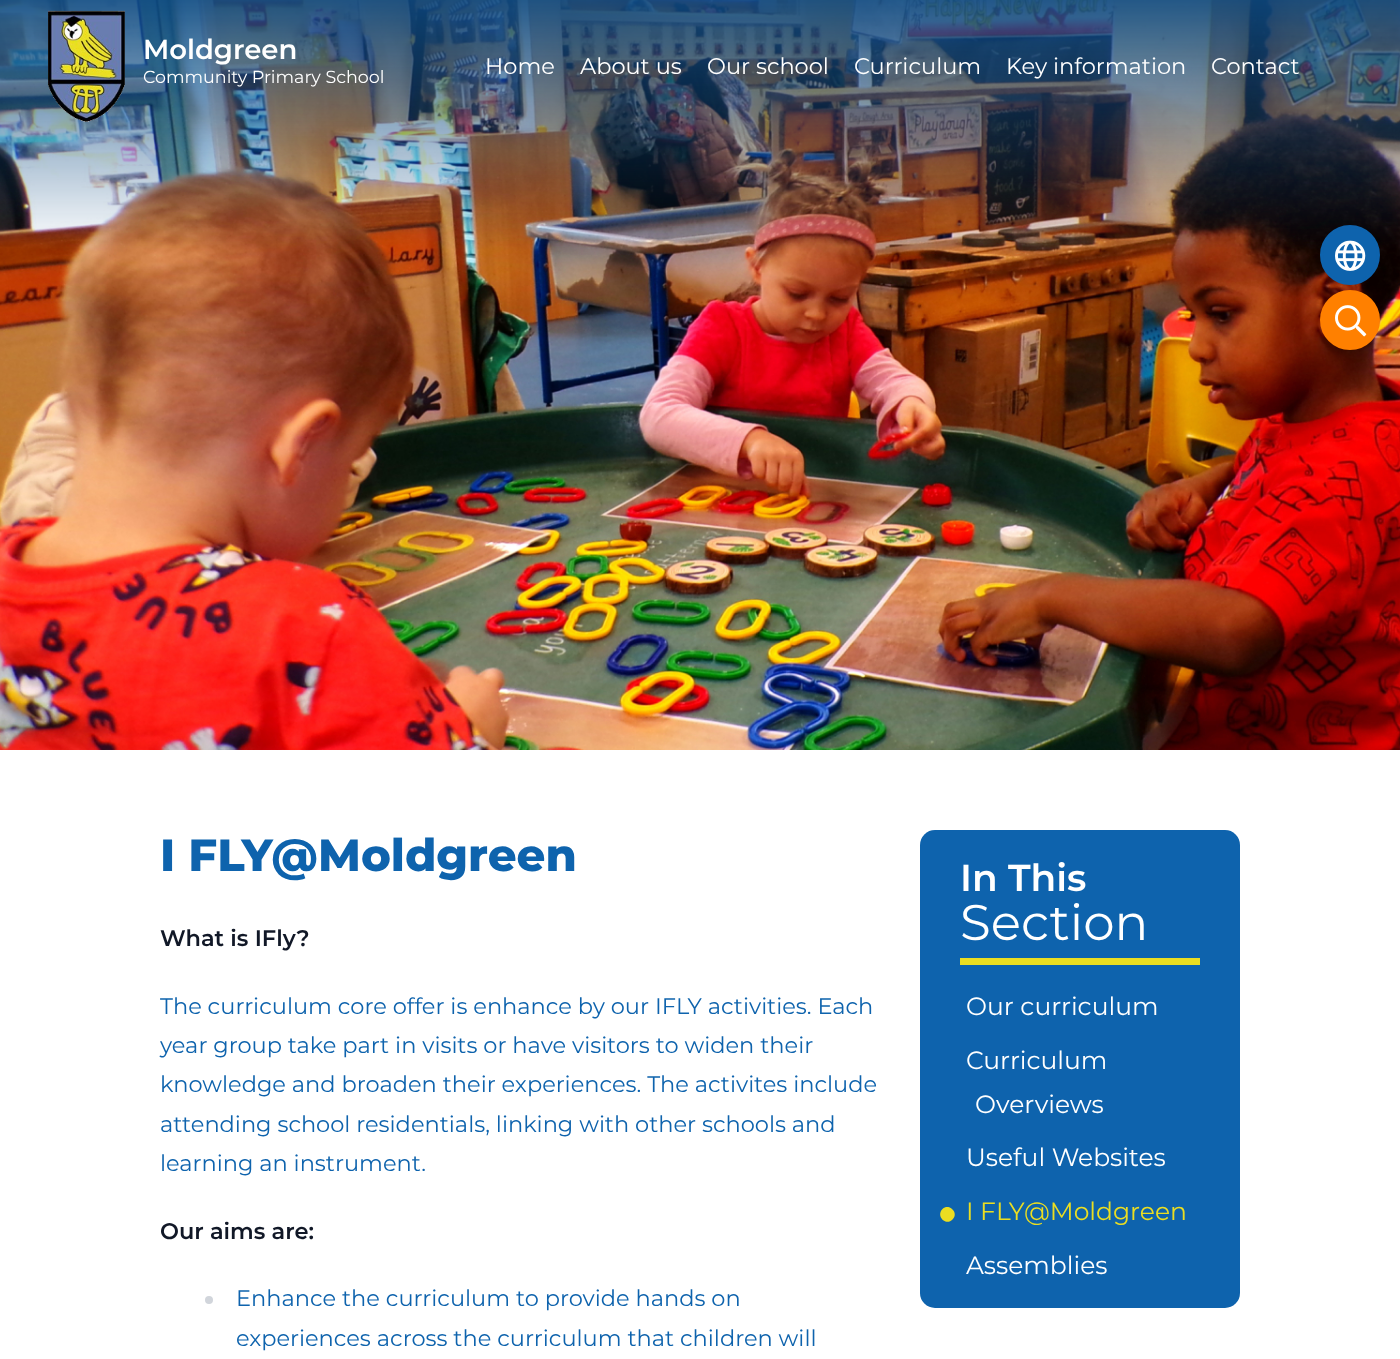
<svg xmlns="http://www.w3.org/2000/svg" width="1400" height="1359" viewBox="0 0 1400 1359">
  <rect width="100%" height="100%" fill="#ffffff"/>
  <image x="0" y="0" width="1400" height="750" href="img1.png"/>
  <circle cx="1350" cy="255" r="28.5" fill="#0e63ad" stroke="#0e63ad" stroke-width="3"/>
  <image x="1335" y="240" width="31" height="31" href="img2.png"/>
  <circle cx="1350" cy="320" r="28.5" fill="#ff8000" stroke="#ff8000" stroke-width="3"/>
  <image x="1335" y="305" width="32" height="32" href="img3.png"/>
  <image x="48" y="10" width="77" height="112" href="img4.png"/>
  <text x="143" y="59" font-family="Montserrat" font-size="27.5" font-weight="600" fill="#ffffff">Moldgreen</text>
  <text x="143" y="83" font-family="Montserrat" font-size="17.5" fill="#ffffff">Community Primary School</text>
  <text x="485" y="74" font-family="Montserrat" font-size="22.5" fill="#ffffff">Home</text>
  <text x="580" y="74" font-family="Montserrat" font-size="22.5" fill="#ffffff">About us</text>
  <text x="707" y="74" font-family="Montserrat" font-size="22.5" fill="#ffffff">Our school</text>
  <text x="854" y="74" font-family="Montserrat" font-size="22.5" fill="#ffffff">Curriculum</text>
  <text x="1006" y="74" font-family="Montserrat" font-size="22.5" fill="#ffffff">Key information</text>
  <text x="1211" y="74" font-family="Montserrat" font-size="22.5" fill="#ffffff">Contact</text>
  <text x="160" y="871" font-family="Montserrat" font-size="45" font-weight="800" fill="#0e63ad">I FLY@Moldgreen</text>
  <text x="160" y="946" font-family="Montserrat" font-size="22.5" font-weight="600" fill="#111827">What is IFly?</text>
  <text x="160" y="1014" font-family="Montserrat" font-size="22.5" fill="#0e63ad">The curriculum core offer is enhance by our IFLY activities. Each</text>
  <text x="160" y="1053" font-family="Montserrat" font-size="22.5" fill="#0e63ad">year group take part in visits or have visitors to widen their</text>
  <text x="160" y="1092" font-family="Montserrat" font-size="22.5" fill="#0e63ad">knowledge and broaden their experiences. The activites include</text>
  <text x="160" y="1132" font-family="Montserrat" font-size="22.5" fill="#0e63ad">attending school residentials, linking with other schools and</text>
  <text x="160" y="1171" font-family="Montserrat" font-size="22.5" fill="#0e63ad">learning an instrument.</text>
  <text x="160" y="1239" font-family="Montserrat" font-size="22.5" font-weight="600" fill="#111827">Our aims are:</text>
  <circle cx="209" cy="1300" r="4" fill="#d1d5db"/>
  <text x="236" y="1306" font-family="Montserrat" font-size="22.5" fill="#0e63ad">Enhance the curriculum to provide hands on</text>
  <text x="236" y="1346" font-family="Montserrat" font-size="22.5" fill="#0e63ad">experiences across the curriculum that children will</text>
  <rect x="920" y="830" width="320" height="478" rx="15" fill="#0e63ad"/>
  <text x="960" y="891" font-family="Montserrat" font-size="37.5" font-weight="600" fill="#ffffff">In This</text>
  <text x="960" y="940" font-family="Montserrat" font-size="50" fill="#ffffff">Section</text>
  <rect x="960" y="958" width="240" height="7" fill="#ebde21"/>
  <text x="966" y="1015" font-family="Montserrat" font-size="25" fill="#ffffff">Our curriculum</text>
  <text x="966" y="1069" font-family="Montserrat" font-size="25" fill="#ffffff">Curriculum</text>
  <text x="975" y="1113" font-family="Montserrat" font-size="25" fill="#ffffff">Overviews</text>
  <text x="966" y="1166" font-family="Montserrat" font-size="25" fill="#ffffff">Useful Websites</text>
  <path d="M942.5 1209C949 1202.5 959.5 1213 952.5 1219.5C946 1226.5 935.5 1216 942.5 1209Z" fill="#ebde21"/>
  <text x="966" y="1220" font-family="Montserrat" font-size="25" fill="#ebde21">I FLY@Moldgreen</text>
  <text x="966" y="1274" font-family="Montserrat" font-size="25" fill="#ffffff">Assemblies</text>
</svg>
